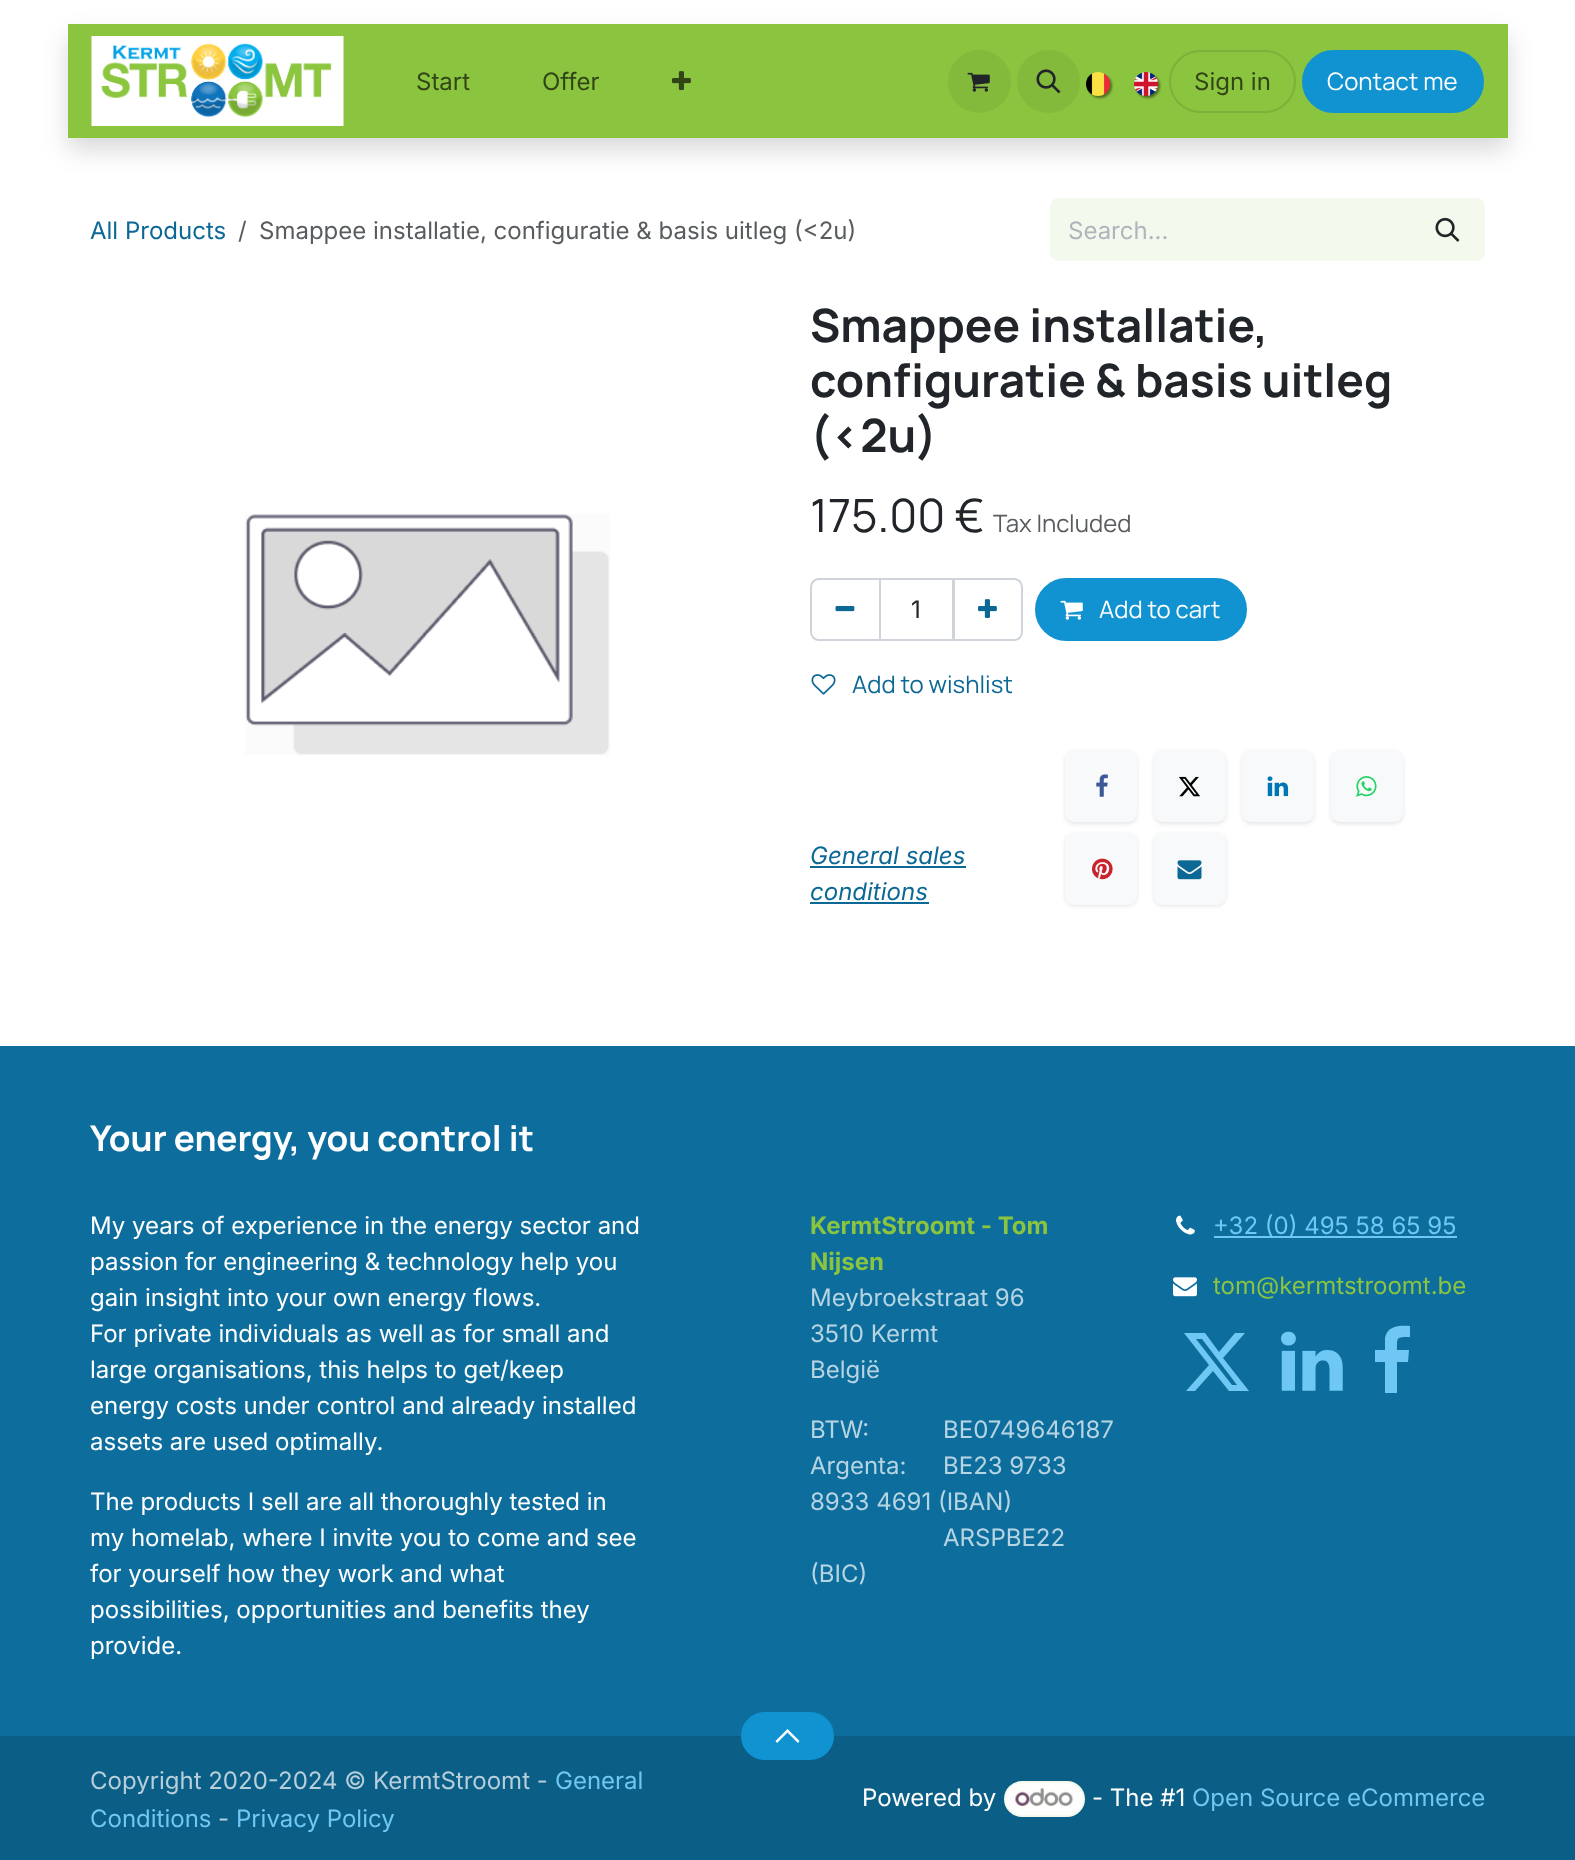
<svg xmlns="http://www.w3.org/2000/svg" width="1575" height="1860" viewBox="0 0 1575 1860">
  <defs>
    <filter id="blur1" x="-50%" y="-200%" width="200%" height="500%"><feGaussianBlur stdDeviation="12"/></filter>
    <filter id="blur2" x="-50%" y="-200%" width="200%" height="500%"><feGaussianBlur stdDeviation="1"/></filter>
    <filter id="blur3" x="-50%" y="-200%" width="200%" height="500%"><feGaussianBlur stdDeviation="2"/></filter>
  </defs>
  <rect width="100%" height="100%" fill="#ffffff"/>
  <rect x="68" y="36" width="1440" height="114" fill="#000000" fill-opacity="0.15" filter="url(#blur1)"/>
  <rect x="68" y="24" width="1440" height="114" fill="#8bc43f"/>
  <image x="91" y="36" width="253" height="90" href="img1.png"/>
  <text x="416" y="90" font-family="Inter" font-size="24" fill="#314516">Start</text>
  <text x="542" y="90" font-family="Inter" font-size="24" fill="#314516">Offer</text>
  <image x="672" y="71" width="19" height="19" href="img2.png"/>
  <circle cx="979.5" cy="81.5" r="31.5" fill="#84ba3c"/>
  <image x="967" y="72" width="23" height="20" href="img3.png"/>
  <circle cx="1048.5" cy="81.5" r="31.5" fill="#84ba3c"/>
  <image x="1036" y="69" width="25" height="25" href="img4.png"/>
  <rect x="1088" y="74" width="24" height="24" rx="12" fill="#000000" fill-opacity="0.43" filter="url(#blur2)"/>
  <image x="1086" y="72" width="24" height="24" href="img5.png"/>
  <rect x="1136" y="74" width="24" height="24" rx="12" fill="#000000" fill-opacity="0.43" filter="url(#blur2)"/>
  <image x="1134" y="72" width="24" height="24" href="img6.png"/>
  <rect x="1170" y="51" width="125" height="61" rx="30.5" fill="none" stroke="#7db139" stroke-width="2"/>
  <text x="1194" y="90" font-family="Inter" font-size="24" fill="#314516">Sign in</text>
  <rect x="1303" y="51" width="180" height="61" rx="30.5" fill="#1193d2" stroke="#1193d2" stroke-width="2"/>
  <text x="1327" y="90" font-family="Manrope" font-size="24" fill="#ffffff">Contact me</text>
  <text x="90" y="239" font-family="Inter" font-size="24" fill="#0c6895">All Products</text>
  <text x="238" y="239" font-family="Inter" font-size="24" fill="#595c5f">/</text>
  <text x="259" y="239" font-family="Inter" font-size="24" fill="#595c5f">Smappee installatie, configuratie &amp; basis uitleg (&lt;2u)</text>
  <path d="M1059 198H1412V261H1059C1054 261 1050 257 1050 252V207C1050 202 1054 198 1059 198Z" fill="#f3f9ec"/>
  <text x="1068" y="239" font-family="Inter" font-size="24" fill="#adb5bd">Search...</text>
  <path d="M1411 199H1476C1480.5 199 1484 202.5 1484 207V252C1484 256.5 1480.5 260 1476 260H1411Z" fill="#f3f9ec" stroke="#f3f9ec" stroke-width="2"/>
  <image x="1435" y="217" width="25" height="25" href="img7.png"/>
  <image x="245" y="514" width="365" height="241" href="img8.png"/>
  <text x="810" y="342" font-family="Manrope" font-size="46" font-weight="bold" fill="#212529">Smappee installatie,</text>
  <text x="810" y="397" font-family="Manrope" font-size="46" font-weight="bold" fill="#212529">configuratie &amp; basis uitleg</text>
  <text x="810" y="452" font-family="Manrope" font-size="46" font-weight="bold" fill="#212529">(&lt;2u)</text>
  <text x="810" y="532" font-family="Manrope" font-size="46" fill="#212529">175.00 €</text>
  <text x="993" y="532" font-family="Manrope" font-size="24" fill="#595c5f">Tax Included</text>
  <rect x="880" y="579" width="73" height="61" fill="none" stroke="#ced4da" stroke-width="2"/>
  <path d="M819 579H880V640H819C814.5 640 811 636.5 811 632V587C811 582.5 814.5 579 819 579Z" fill="none" stroke="#ced4da" stroke-width="2"/>
  <image x="835" y="606" width="20" height="6" href="img9.png"/>
  <text x="911" y="618" font-family="Inter" font-size="24" fill="#212529">1</text>
  <path d="M954 579H1014C1018.5 579 1022 582.5 1022 587V632C1022 636.5 1018.5 640 1014 640H954Z" fill="none" stroke="#ced4da" stroke-width="2"/>
  <image x="978" y="599" width="19" height="19" href="img10.png"/>
  <rect x="1036" y="579" width="210" height="61" rx="30.5" fill="#1193d2" stroke="#1193d2" stroke-width="2"/>
  <image x="1060" y="600" width="23" height="20" href="img11.png"/>
  <text x="1099" y="618" font-family="Manrope" font-size="24" fill="#ffffff">Add to cart</text>
  <image x="811" y="674" width="25" height="21" href="img12.png"/>
  <text x="852" y="693" font-family="Manrope" font-size="24" fill="#0c6895">Add to wishlist</text>
  <text x="810" y="864" font-family="Inter" font-size="24" font-style="italic" fill="#0c6895">General sales</text>
  <rect x="810" y="866" width="156" height="2" fill="#0c6895"/>
  <text x="810" y="900" font-family="Inter" font-size="24" font-style="italic" fill="#0c6895">conditions</text>
  <rect x="810" y="902" width="119" height="2" fill="#0c6895"/>
  <rect x="1065" y="752" width="72" height="72" rx="9" fill="#000000" fill-opacity="0.1" filter="url(#blur3)"/>
  <rect x="1065" y="750" width="72" height="72" rx="9" fill="#f8f9fa"/>
  <image x="1096" y="774" width="12" height="23" href="img13.png"/>
  <rect x="1154" y="752" width="72" height="72" rx="9" fill="#000000" fill-opacity="0.1" filter="url(#blur3)"/>
  <rect x="1154" y="750" width="72" height="72" rx="9" fill="#f8f9fa"/>
  <image x="1179" y="776" width="21" height="21" href="img14.png"/>
  <rect x="1242" y="752" width="72" height="72" rx="9" fill="#000000" fill-opacity="0.1" filter="url(#blur3)"/>
  <rect x="1242" y="750" width="72" height="72" rx="9" fill="#f8f9fa"/>
  <image x="1267" y="776" width="22" height="21" href="img15.png"/>
  <rect x="1331" y="752" width="72" height="72" rx="9" fill="#000000" fill-opacity="0.1" filter="url(#blur3)"/>
  <rect x="1331" y="750" width="72" height="72" rx="9" fill="#f8f9fa"/>
  <image x="1356" y="776" width="21" height="21" href="img16.png"/>
  <rect x="1065" y="834" width="72" height="72" rx="9" fill="#000000" fill-opacity="0.1" filter="url(#blur3)"/>
  <rect x="1065" y="833" width="72" height="72" rx="9" fill="#f8f9fa"/>
  <image x="1092" y="858" width="21" height="22" href="img17.png"/>
  <rect x="1154" y="834" width="72" height="72" rx="9" fill="#000000" fill-opacity="0.1" filter="url(#blur3)"/>
  <rect x="1154" y="833" width="72" height="72" rx="9" fill="#f8f9fa"/>
  <image x="1177" y="860" width="25" height="20" href="img18.png"/>
  <rect x="0" y="1046" width="1575" height="690" fill="#0d6e9e"/>
  <text x="90" y="1151" font-family="Manrope" font-size="35.3" font-weight="bold" fill="#ffffff">Your energy, you control it</text>
  <text x="90" y="1234" font-family="Inter" font-size="24" fill="#ffffff">My years of experience in the energy sector and</text>
  <text x="90" y="1270" font-family="Inter" font-size="24" fill="#ffffff">passion for engineering &amp; technology help you</text>
  <text x="90" y="1306" font-family="Inter" font-size="24" fill="#ffffff">gain insight into your own energy flows.</text>
  <text x="90" y="1342" font-family="Inter" font-size="24" fill="#ffffff">For private individuals as well as for small and</text>
  <text x="90" y="1378" font-family="Inter" font-size="24" fill="#ffffff">large organisations, this helps to get/keep</text>
  <text x="90" y="1414" font-family="Inter" font-size="24" fill="#ffffff">energy costs under control and already installed</text>
  <text x="90" y="1450" font-family="Inter" font-size="24" fill="#ffffff">assets are used optimally.</text>
  <text x="90" y="1510" font-family="Inter" font-size="24" fill="#ffffff">The products I sell are all thoroughly tested in</text>
  <text x="90" y="1546" font-family="Inter" font-size="24" fill="#ffffff">my homelab, where I invite you to come and see</text>
  <text x="90" y="1582" font-family="Inter" font-size="24" fill="#ffffff">for yourself how they work and what</text>
  <text x="90" y="1618" font-family="Inter" font-size="24" fill="#ffffff">possibilities, opportunities and benefits they</text>
  <text x="90" y="1654" font-family="Inter" font-size="24" fill="#ffffff">provide.</text>
  <text x="810" y="1234" font-family="Inter" font-size="24" font-weight="bold" fill="#8bc43f">KermtStroomt - Tom</text>
  <text x="810" y="1270" font-family="Inter" font-size="24" font-weight="bold" fill="#8bc43f">Nijsen</text>
  <text x="810" y="1306" font-family="Inter" font-size="24" fill="#b6d4e2">Meybroekstraat 96</text>
  <text x="810" y="1342" font-family="Inter" font-size="24" fill="#b6d4e2">3510 Kermt</text>
  <text x="810" y="1378" font-family="Inter" font-size="24" fill="#b6d4e2">België</text>
  <text x="810" y="1438" font-family="Inter" font-size="24" fill="#b6d4e2">BTW:</text>
  <text x="943" y="1438" font-family="Inter" font-size="24" fill="#b6d4e2">BE0749646187</text>
  <text x="810" y="1474" font-family="Inter" font-size="24" fill="#b6d4e2">Argenta:</text>
  <text x="943" y="1474" font-family="Inter" font-size="24" fill="#b6d4e2">BE23 9733</text>
  <text x="810" y="1510" font-family="Inter" font-size="24" fill="#b6d4e2">8933 4691 (IBAN)</text>
  <text x="943" y="1546" font-family="Inter" font-size="24" fill="#b6d4e2">ARSPBE22</text>
  <text x="810" y="1582" font-family="Inter" font-size="24" fill="#b6d4e2">(BIC)</text>
  <image x="1176" y="1215" width="19" height="20" href="img19.png"/>
  <rect x="1214" y="1236" width="243" height="2" fill="#6fc8f3"/>
  <text x="1213" y="1234" font-family="Inter" font-size="24" fill="#6fc8f3">+32 (0) 495 58 65 95</text>
  <image x="1173" y="1277" width="24" height="20" href="img20.png"/>
  <text x="1213" y="1294" font-family="Inter" font-size="24" fill="#8bc43f">tom@kermtstroomt.be</text>
  <path d="M1235 1333H1245L1223 1358L1249 1391H1229L1213 1371L1195 1391H1186L1209 1365L1184 1333H1205L1219 1352ZM1232 1385H1237L1202 1339H1196Z" fill="#6fc8f3"/>
  <image x="1281" y="1331" width="62" height="60" href="img21.png"/>
  <path d="M1410 1326V1337C1396 1337 1397 1337 1397 1350H1409L1408 1362H1397V1393H1385V1362H1375V1350H1385V1338C1387 1326 1399 1325 1410 1326Z" fill="#6fc8f3"/>
  <rect x="0" y="1736" width="1575" height="124" fill="#0b5e86"/>
  <rect x="742" y="1713" width="91" height="46" rx="23" fill="#1193d2" stroke="#1193d2" stroke-width="2"/>
  <path d="M787.5 1729L799.5 1741L798 1743L787.5 1732.5L777 1743L775.5 1741Z" fill="#ffffff"/>
  <text x="90" y="1789" font-family="Inter" font-size="24" fill="#b6cfdb">Copyright 2020-2024 © KermtStroomt -</text>
  <text x="555" y="1789" font-family="Inter" font-size="24" fill="#6fc8f3">General</text>
  <text x="90" y="1827" font-family="Inter" font-size="24" fill="#6fc8f3">Conditions</text>
  <text x="218" y="1827" font-family="Inter" font-size="24" fill="#b6cfdb">-</text>
  <text x="236" y="1827" font-family="Inter" font-size="24" fill="#6fc8f3">Privacy Policy</text>
  <text x="862" y="1806" font-family="Inter" font-size="24" fill="#ffffff">Powered by</text>
  <rect x="1005" y="1782" width="79" height="34" rx="17" fill="#fefefd" stroke="#f3f9ec" stroke-width="2"/>
  <image x="1015" y="1788" width="58" height="18" href="img22.png"/>
  <text x="1092" y="1806" font-family="Inter" font-size="24" fill="#ffffff">- The #1</text>
  <text x="1192" y="1806" font-family="Inter" font-size="24" fill="#6fc8f3">Open Source eCommerce</text>
</svg>
